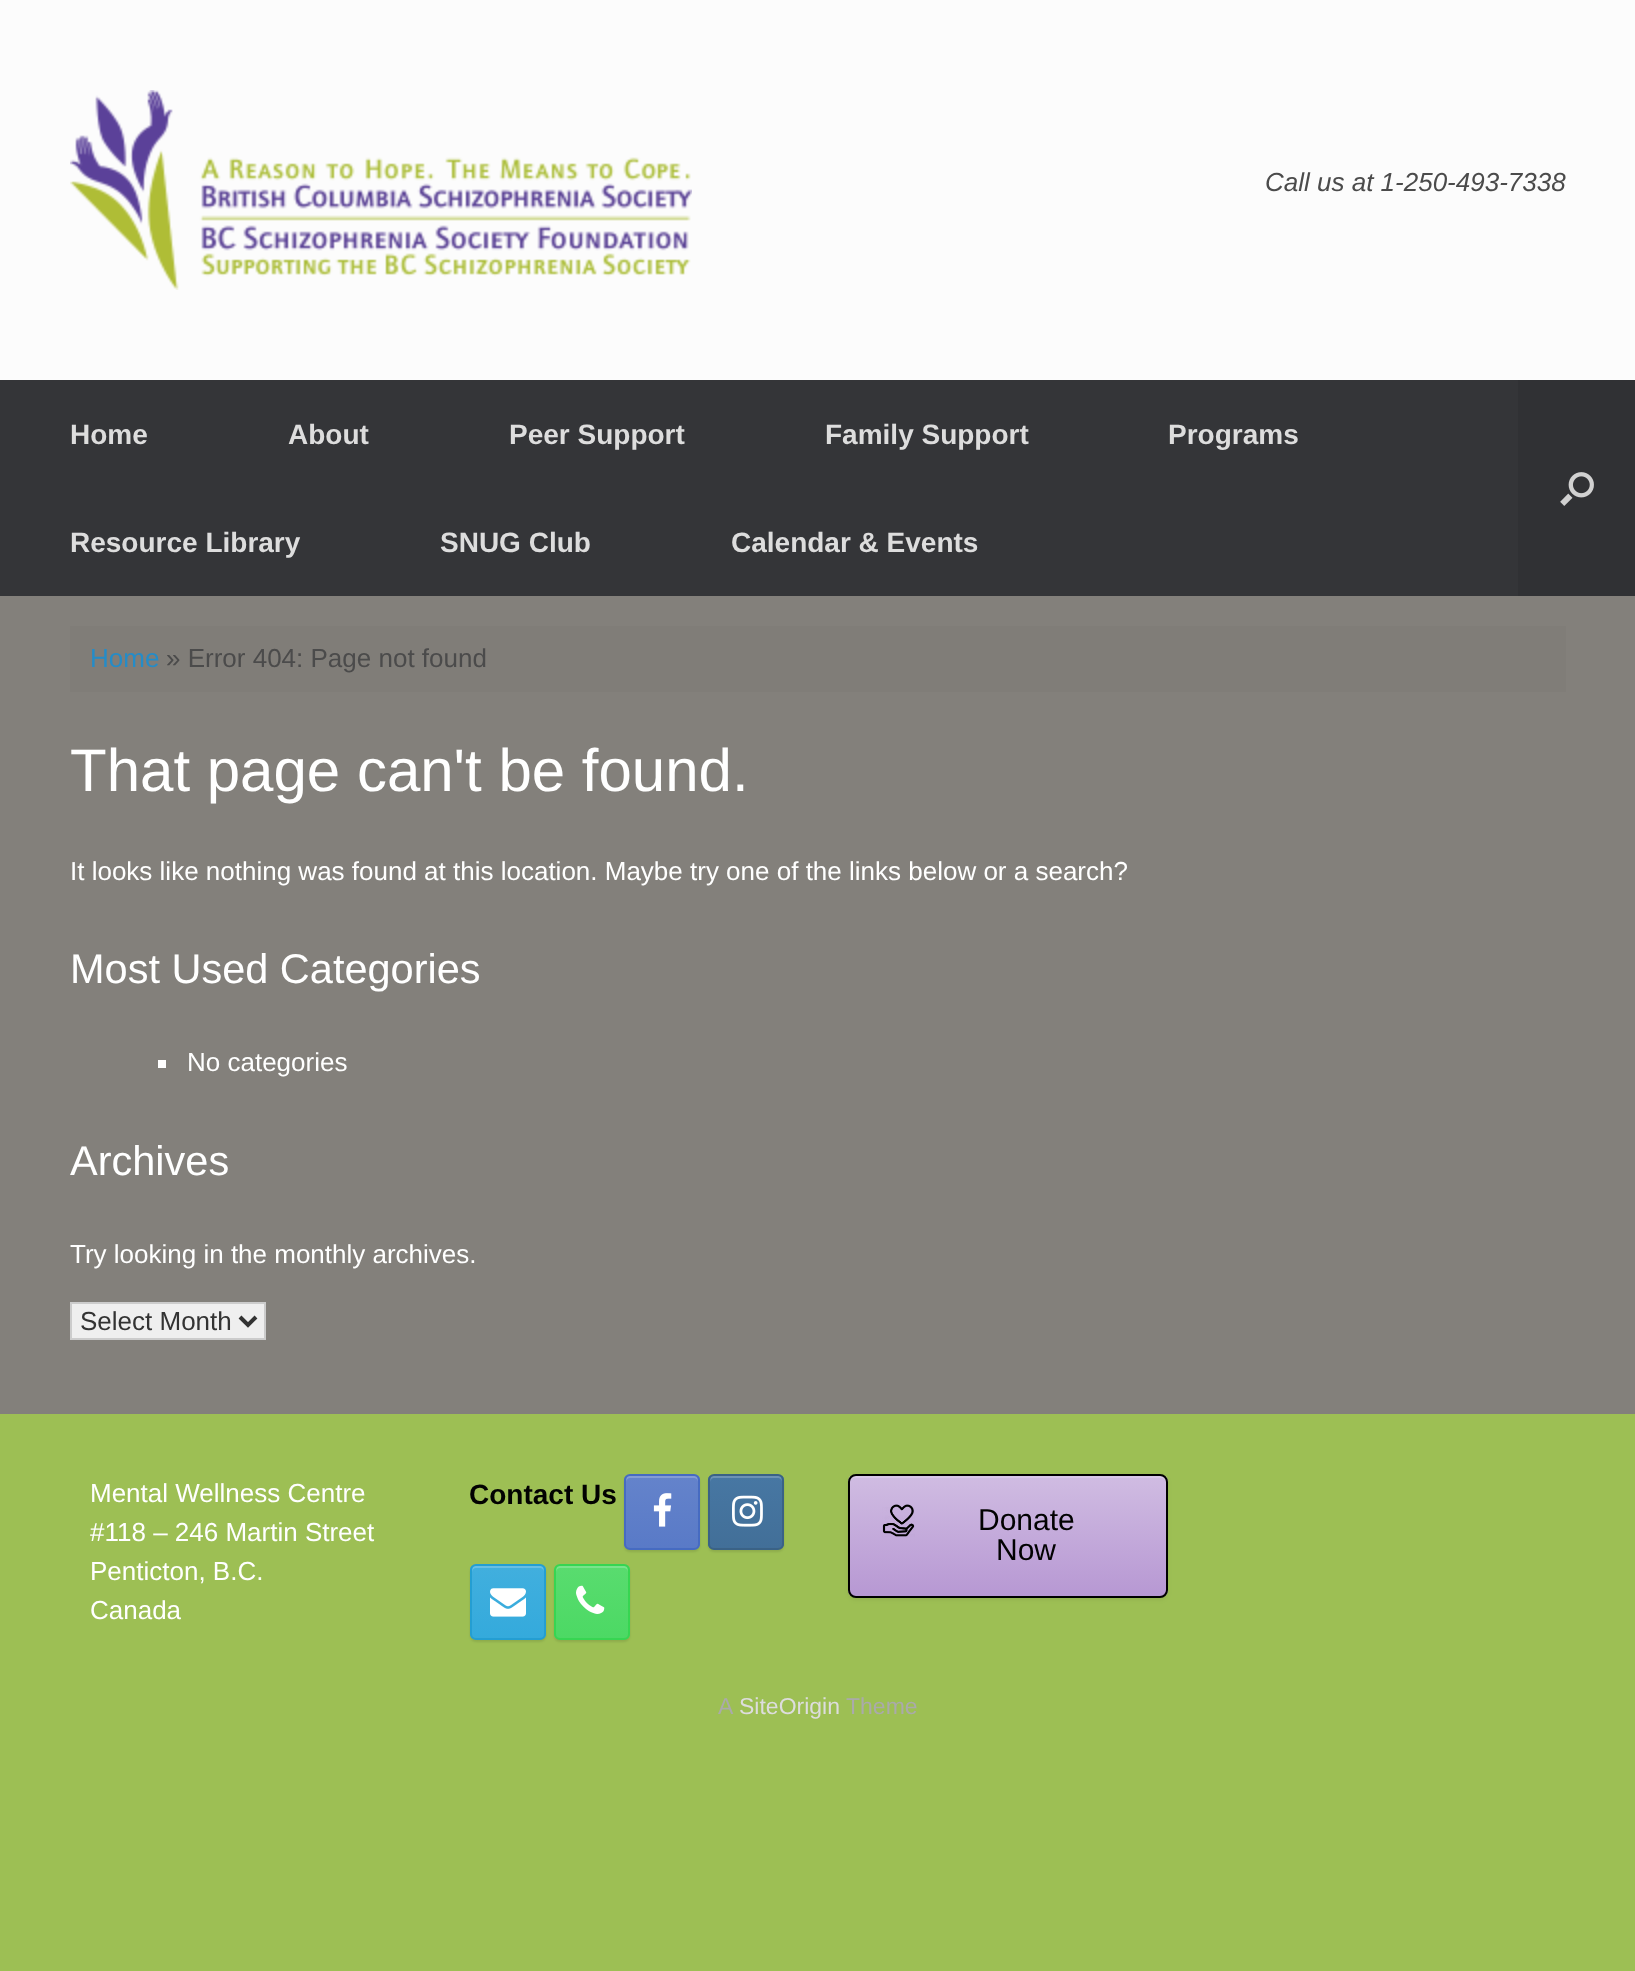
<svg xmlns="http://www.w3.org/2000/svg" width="1635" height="1971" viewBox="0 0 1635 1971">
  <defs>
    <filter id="blur1" x="-50%" y="-200%" width="200%" height="500%"><feGaussianBlur stdDeviation="1"/></filter>
    <clipPath id="clip1"><rect x="624" y="1474" width="76" height="76" rx="6"/></clipPath>
    <linearGradient id="g1" gradientUnits="userSpaceOnUse" x1="662" y1="1548" x2="662" y2="1476"><stop offset="0" stop-color="#597ac7"/><stop offset="1" stop-color="#6483cb"/></linearGradient>
    <clipPath id="clip2"><rect x="708" y="1474" width="76" height="76" rx="6"/></clipPath>
    <linearGradient id="g2" gradientUnits="userSpaceOnUse" x1="746" y1="1548" x2="746" y2="1476"><stop offset="0" stop-color="#426f98"/><stop offset="1" stop-color="#4777a3"/></linearGradient>
    <clipPath id="clip3"><rect x="470" y="1564" width="76" height="76" rx="6"/></clipPath>
    <linearGradient id="g3" gradientUnits="userSpaceOnUse" x1="508" y1="1638" x2="508" y2="1566"><stop offset="0" stop-color="#34aadc"/><stop offset="1" stop-color="#41afde"/></linearGradient>
    <clipPath id="clip4"><rect x="554" y="1564" width="76" height="76" rx="6"/></clipPath>
    <linearGradient id="g4" gradientUnits="userSpaceOnUse" x1="592" y1="1638" x2="592" y2="1566"><stop offset="0" stop-color="#4cd964"/><stop offset="1" stop-color="#59dc6f"/></linearGradient>
    <filter id="blur2" x="-50%" y="-200%" width="200%" height="500%"><feGaussianBlur stdDeviation="2"/></filter>
    <clipPath id="clip5"><rect x="848" y="1474" width="320" height="124" rx="8"/></clipPath>
    <linearGradient id="g5" gradientUnits="userSpaceOnUse" x1="850" y1="1596" x2="850" y2="1476"><stop offset="0" stop-color="#b798d3"/><stop offset="1" stop-color="#d0bce2"/></linearGradient>
  </defs>
  <rect width="100%" height="100%" fill="#9dbf54"/>
  <rect x="0" y="0" width="1635" height="380" fill="#fcfcfc"/>
  <image x="70" y="90" width="622" height="200" href="img1.png"/>
  <text x="1265" y="191" font-family="Liberation Sans" font-size="26" font-style="italic" fill="#4b4b4b">Call us at 1-250-493-7338</text>
  <rect x="0" y="380" width="1518" height="216" fill="#343538"/>
  <text x="70" y="444" font-family="Liberation Sans" font-size="28" font-weight="bold" fill="#dddddd">Home</text>
  <text x="288" y="444" font-family="Liberation Sans" font-size="28" font-weight="bold" fill="#dddddd">About</text>
  <text x="509" y="444" font-family="Liberation Sans" font-size="28" font-weight="bold" fill="#dddddd">Peer Support</text>
  <text x="825" y="444" font-family="Liberation Sans" font-size="28" font-weight="bold" fill="#dddddd">Family Support</text>
  <text x="1168" y="444" font-family="Liberation Sans" font-size="28" font-weight="bold" fill="#dddddd">Programs</text>
  <text x="70" y="552" font-family="Liberation Sans" font-size="28" font-weight="bold" fill="#dddddd">Resource Library</text>
  <text x="440" y="552" font-family="Liberation Sans" font-size="28" font-weight="bold" fill="#dddddd">SNUG Club</text>
  <text x="731" y="552" font-family="Liberation Sans" font-size="28" font-weight="bold" fill="#dddddd">Calendar &amp; Events</text>
  <rect x="1518" y="380" width="117" height="216" fill="#303134"/>
  <image x="1560" y="472" width="34" height="34" href="img2.png"/>
  <rect x="0" y="596" width="1635" height="818" fill="#83807b"/>
  <rect x="70" y="626" width="1496" height="66" fill="#807d78"/>
  <text x="90" y="667" font-family="Liberation Sans" font-size="26" fill="#248cc8">Home</text>
  <text x="166" y="667" font-family="Liberation Sans" font-size="26" fill="#4b4b4b">» Error 404: Page not found</text>
  <text x="70" y="791" font-family="Liberation Sans" font-size="60" fill="#ffffff">That page can't be found.</text>
  <text x="70" y="880" font-family="Liberation Sans" font-size="26" fill="#ffffff">It looks like nothing was found at this location. Maybe try one of the links below or a search?</text>
  <text x="70" y="983" font-family="Liberation Sans" font-size="41.5" fill="#ffffff">Most Used Categories</text>
  <rect x="158" y="1060" width="8" height="8" fill="#ffffff"/>
  <text x="187" y="1071" font-family="Liberation Sans" font-size="26" fill="#ffffff">No categories</text>
  <text x="70" y="1175" font-family="Liberation Sans" font-size="41.5" fill="#ffffff">Archives</text>
  <text x="70" y="1263" font-family="Liberation Sans" font-size="26" fill="#ffffff">Try looking in the monthly archives.</text>
  <rect x="71" y="1303" width="194" height="36" fill="#efefef" stroke="#cccccc" stroke-width="2"/>
  <path d="M240 1317L248 1325L256 1317" fill="none" stroke="#333333" stroke-width="4"/>
  <text x="80" y="1330" font-family="Liberation Sans" font-size="26" fill="#333333">Select Month</text>
  <text x="90" y="1502" font-family="Liberation Sans" font-size="26" fill="#ffffff">Mental Wellness Centre</text>
  <text x="90" y="1541" font-family="Liberation Sans" font-size="26" fill="#ffffff">#118 – 246 Martin Street</text>
  <text x="90" y="1580" font-family="Liberation Sans" font-size="26" fill="#ffffff">Penticton, B.C.</text>
  <text x="90" y="1619" font-family="Liberation Sans" font-size="26" fill="#ffffff">Canada</text>
  <text x="469" y="1504" font-family="Liberation Sans" font-size="28" font-weight="bold" fill="#020202">Contact Us</text>
  <rect x="624" y="1476" width="76" height="76" rx="6" fill="#000000" fill-opacity="0.1" filter="url(#blur1)"/>
  <g clip-path="url(#clip1)">
    <rect x="624" y="1476" width="76" height="72" fill="url(#g1)"/>
  </g>
  <path d="M630 1478H694C696 1478 698 1480 698 1482C698 1473 691 1476 683 1476H641C633 1476 626 1473 626 1482C626 1480 628 1478 630 1478Z" fill="#839cd5"/>
  <rect x="625" y="1475" width="74" height="74" rx="5" fill="none" stroke="#466bc1" stroke-width="2"/>
  <image x="653" y="1493" width="19" height="34" href="img3.png"/>
  <rect x="708" y="1476" width="76" height="76" rx="6" fill="#000000" fill-opacity="0.1" filter="url(#blur1)"/>
  <g clip-path="url(#clip2)">
    <rect x="708" y="1476" width="76" height="72" fill="url(#g2)"/>
  </g>
  <path d="M714 1478H778C780 1478 782 1480 782 1482C782 1473 775 1476 767 1476H725C717 1476 710 1473 710 1482C710 1480 712 1478 714 1478Z" fill="#6c92b5"/>
  <rect x="709" y="1475" width="74" height="74" rx="5" fill="none" stroke="#3a6286" stroke-width="2"/>
  <image x="732" y="1495" width="31" height="32" href="img4.png"/>
  <rect x="470" y="1566" width="76" height="76" rx="6" fill="#000000" fill-opacity="0.1" filter="url(#blur1)"/>
  <g clip-path="url(#clip3)">
    <rect x="470" y="1566" width="76" height="72" fill="url(#g3)"/>
  </g>
  <path d="M476 1568H540C542 1568 544 1570 544 1572C544 1563 537 1566 529 1566H487C479 1566 472 1563 472 1572C472 1570 474 1568 476 1568Z" fill="#67bfe5"/>
  <rect x="471" y="1565" width="74" height="74" rx="5" fill="none" stroke="#249ed2" stroke-width="2"/>
  <image x="490" y="1588" width="36" height="29" href="img5.png"/>
  <rect x="554" y="1566" width="76" height="76" rx="6" fill="#000000" fill-opacity="0.1" filter="url(#blur1)"/>
  <g clip-path="url(#clip4)">
    <rect x="554" y="1566" width="76" height="72" fill="url(#g4)"/>
  </g>
  <path d="M560 1568H624C626 1568 628 1570 628 1572C628 1563 621 1566 613 1566H571C563 1566 556 1563 556 1572C556 1570 558 1568 560 1568Z" fill="#7ae38c"/>
  <rect x="555" y="1565" width="74" height="74" rx="5" fill="none" stroke="#37d552" stroke-width="2"/>
  <image x="576" y="1585" width="29" height="29" href="img6.png"/>
  <rect x="848" y="1476" width="320" height="124" rx="8" fill="#000000" fill-opacity="0.07" filter="url(#blur2)"/>
  <g clip-path="url(#clip5)">
    <rect x="848" y="1476" width="320" height="120" fill="url(#g5)"/>
  </g>
  <path d="M855 1478H1161C1164 1478 1166 1480 1166 1483V1481C1166 1478 1164 1476 1161 1476H855C852 1476 850 1478 850 1481V1483C850 1480 852 1478 855 1478Z" fill="#d9c9e8"/>
  <rect x="849" y="1475" width="318" height="122" rx="7" fill="none" stroke="#000000" stroke-width="2"/>
  <image x="882" y="1504" width="33" height="33" href="img7.png"/>
  <text x="978" y="1530" font-family="Liberation Sans" font-size="30" fill="#020202">Donate</text>
  <text x="996" y="1560" font-family="Liberation Sans" font-size="30" fill="#020202">Now</text>
  <text x="718" y="1714" font-family="Liberation Sans" font-size="23" fill="#aaaaaa">A</text>
  <text x="739" y="1714" font-family="Liberation Sans" font-size="23" fill="#dddddd">SiteOrigin</text>
  <text x="846" y="1714" font-family="Liberation Sans" font-size="23" fill="#aaaaaa">Theme</text>
</svg>
